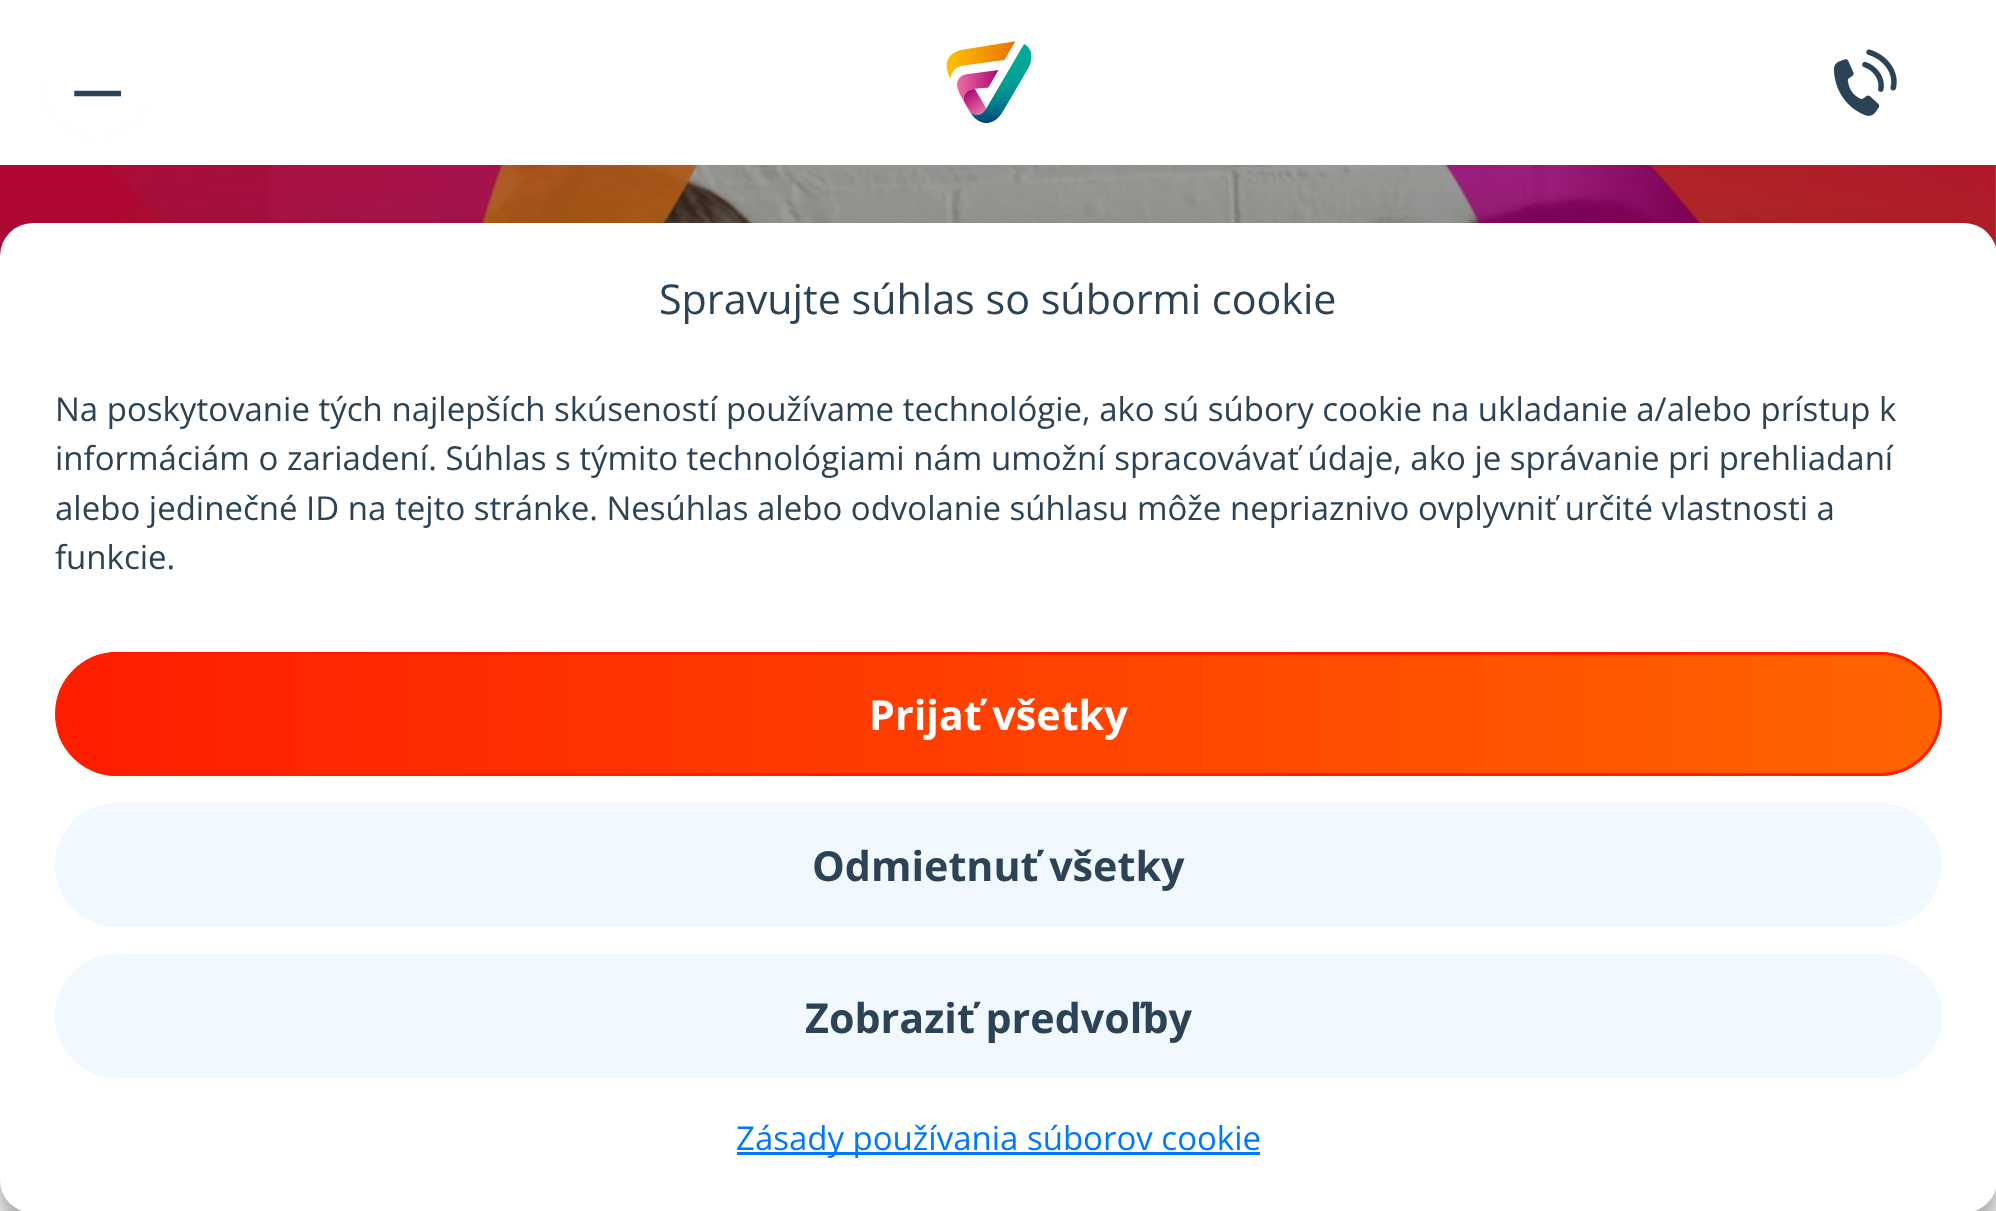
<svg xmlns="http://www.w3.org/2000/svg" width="1996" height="1211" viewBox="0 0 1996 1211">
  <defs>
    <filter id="blur1" x="-50%" y="-200%" width="200%" height="500%"><feGaussianBlur stdDeviation="8"/></filter>
    <filter id="blur2" x="-50%" y="-200%" width="200%" height="500%"><feGaussianBlur stdDeviation="27.5"/></filter>
    <clipPath id="clip1"><rect x="55" y="652" width="1887" height="124" rx="62"/></clipPath>
    <linearGradient id="g1" gradientUnits="userSpaceOnUse" x1="58" y1="714" x2="1939" y2="714"><stop offset="0" stop-color="#ff1e00"/><stop offset="1" stop-color="#ff6400"/></linearGradient>
  </defs>
  <rect width="100%" height="100%" fill="#ffffff"/>
  <image x="41" y="82" width="105" height="55" href="img1.png"/>
  <image x="946" y="41" width="85" height="82" href="img2.png"/>
  <image x="1833" y="49" width="64" height="67" href="img3.png"/>
  <image x="0" y="165" width="1996" height="91" href="img4.png"/>
  <rect x="0" y="239" width="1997" height="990" rx="33" fill="#000000" fill-opacity="0.23" filter="url(#blur1)"/>
  <rect x="0" y="250" width="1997" height="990" rx="33" fill="#000000" fill-opacity="0.19" filter="url(#blur2)"/>
  <rect x="0" y="223" width="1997" height="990" rx="33" fill="#ffffff"/>
  <text x="659" y="314" font-family="Open Sans" font-size="41.25" fill="#2c4255">Spravujte súhlas so súbormi cookie</text>
  <text x="55" y="421" font-family="Open Sans" font-size="33" fill="#2c4255">Na poskytovanie tých najlepších skúseností používame technológie, ako sú súbory cookie na ukladanie a/alebo prístup k</text>
  <text x="55" y="470" font-family="Open Sans" font-size="33" fill="#2c4255">informáciám o zariadení. Súhlas s týmito technológiami nám umožní spracovávať údaje, ako je správanie pri prehliadaní</text>
  <text x="55" y="520" font-family="Open Sans" font-size="33" fill="#2c4255">alebo jedinečné ID na tejto stránke. Nesúhlas alebo odvolanie súhlasu môže nepriaznivo ovplyvniť určité vlastnosti a</text>
  <text x="55" y="569" font-family="Open Sans" font-size="33" fill="#2c4255">funkcie.</text>
  <g clip-path="url(#clip1)">
    <rect x="58" y="652" width="1881" height="124" fill="url(#g1)"/>
  </g>
  <rect x="56.5" y="653.5" width="1884" height="121" rx="60.5" fill="none" stroke="#ff1e00" stroke-width="3"/>
  <text x="869" y="730" font-family="Open Sans" font-size="41.25" font-weight="bold" fill="#ffffff">Prijať všetky</text>
  <rect x="56.5" y="804.5" width="1884" height="121" rx="60.5" fill="#f2f8ff" stroke="#f2f8ff" stroke-width="3"/>
  <text x="812" y="881" font-family="Open Sans" font-size="41.25" font-weight="bold" fill="#2c4255">Odmietnuť všetky</text>
  <rect x="56.5" y="955.5" width="1884" height="121" rx="60.5" fill="#f2f8ff" stroke="#f2f8ff" stroke-width="3"/>
  <text x="805" y="1033" font-family="Open Sans" font-size="41.25" font-weight="bold" fill="#2c4255">Zobraziť predvoľby</text>
  <rect x="737" y="1152" width="523" height="3" fill="#0077ff"/>
  <text x="736" y="1150" font-family="Open Sans" font-size="33" fill="#0077ff">Zásady používania súborov cookie</text>
</svg>
